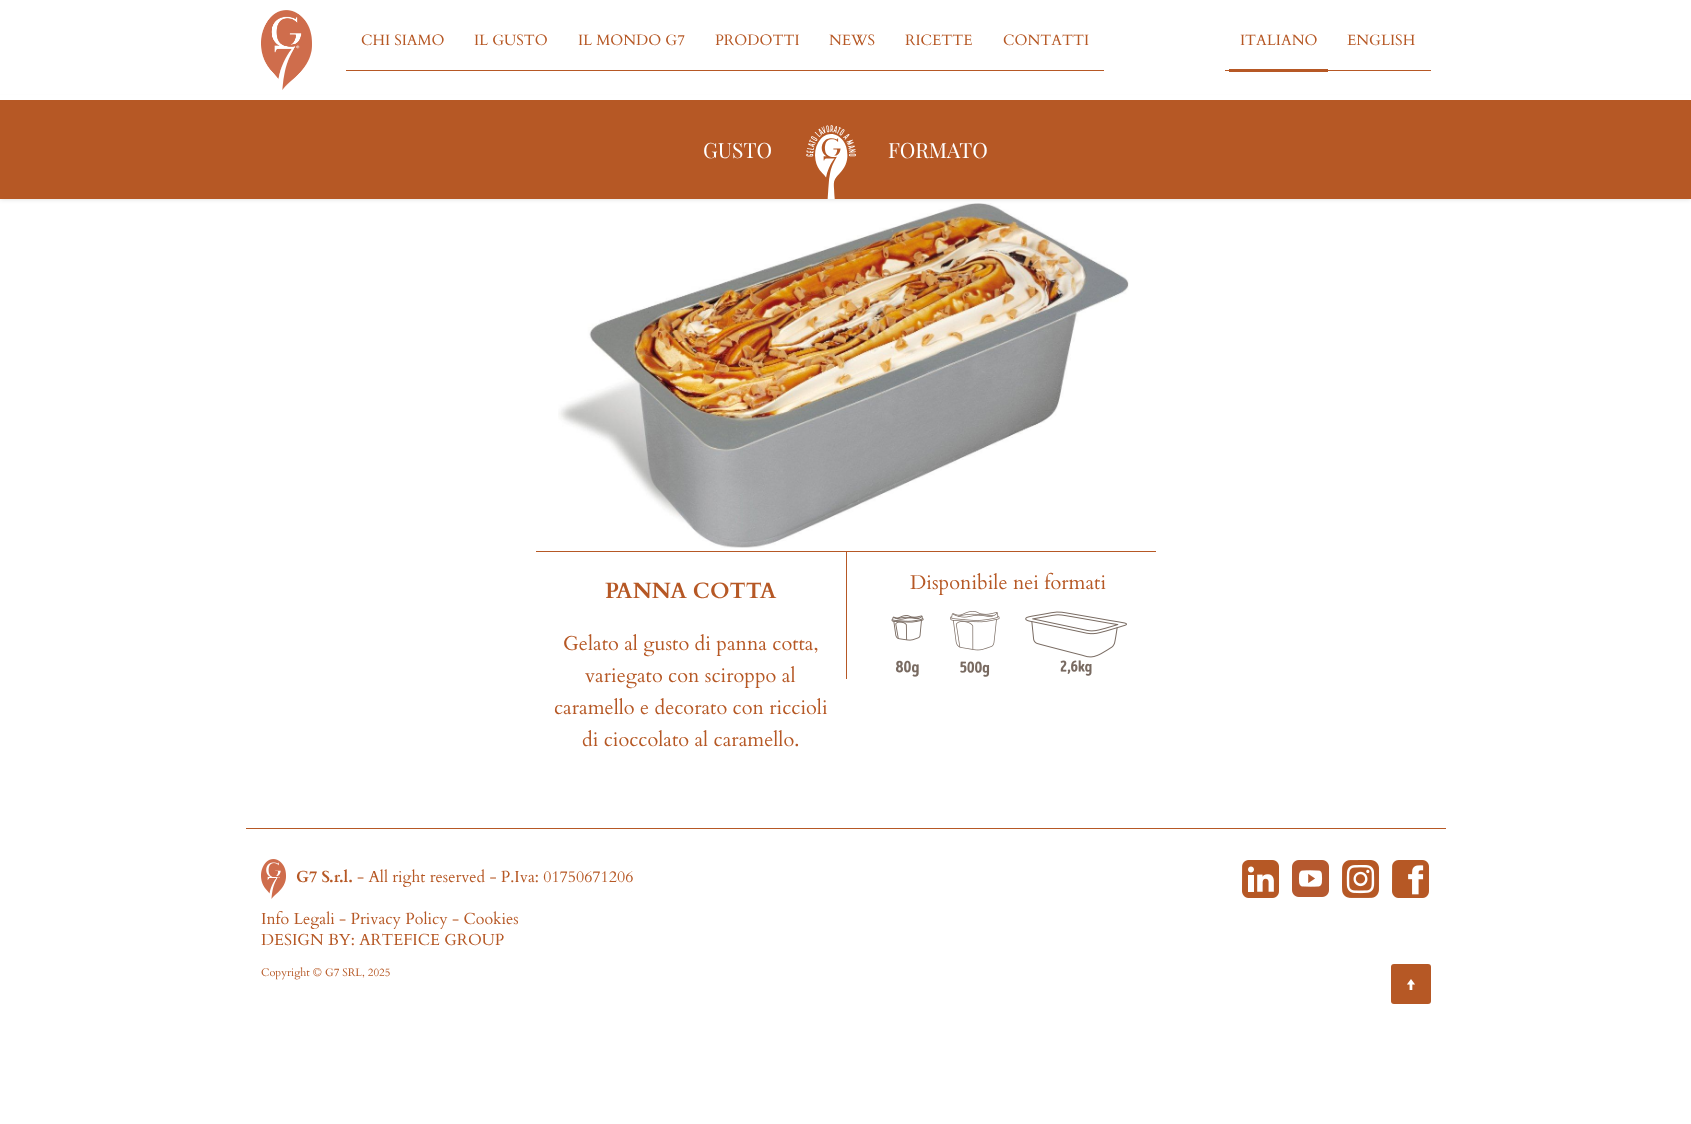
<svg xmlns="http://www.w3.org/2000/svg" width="1691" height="1124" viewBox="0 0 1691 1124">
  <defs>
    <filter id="blur1" x="-50%" y="-200%" width="200%" height="500%"><feGaussianBlur stdDeviation="2.5"/></filter>
  </defs>
  <rect width="100%" height="100%" fill="#ffffff"/>
  <image x="558" y="203" width="571" height="345" href="img3.png"/>
  <rect x="0" y="99" width="1691" height="100" fill="#000000" fill-opacity="0.15" filter="url(#blur1)"/>
  <rect x="0" y="95" width="1691" height="5" fill="#ffffff"/>
  <image x="261" y="10" width="51" height="80" href="img1.png"/>
  <rect x="346" y="70" width="758" height="1" fill="#b65825"/>
  <text x="361" y="45" font-family="Cardo" font-size="15" fill="#b65825">CHI SIAMO</text>
  <text x="474" y="45" font-family="Cardo" font-size="15" fill="#b65825">IL GUSTO</text>
  <text x="578" y="45" font-family="Cardo" font-size="15" fill="#b65825">IL MONDO G7</text>
  <text x="715" y="45" font-family="Cardo" font-size="15" fill="#b65825">PRODOTTI</text>
  <text x="829" y="45" font-family="Cardo" font-size="15" fill="#b65825">NEWS</text>
  <text x="905" y="45" font-family="Cardo" font-size="15" fill="#b65825">RICETTE</text>
  <text x="1003" y="45" font-family="Cardo" font-size="15" fill="#b65825">CONTATTI</text>
  <rect x="1225" y="70" width="206" height="1" fill="#b65825"/>
  <text x="1240" y="45" font-family="Cardo" font-size="15" fill="#b65825">ITALIANO</text>
  <rect x="1229" y="69" width="99" height="3" fill="#b65825"/>
  <text x="1347" y="45" font-family="Cardo" font-size="15" fill="#b65825">ENGLISH</text>
  <rect x="0" y="100" width="1691" height="99" fill="#b65825"/>
  <text x="703" y="158" font-family="Playfair Display" font-size="21" fill="#ffffff">GUSTO</text>
  <image x="806" y="125" width="50" height="74" href="img2.png"/>
  <text x="888" y="158" font-family="Playfair Display" font-size="21" fill="#ffffff">FORMATO</text>
  <rect x="536" y="551" width="620" height="1" fill="#b65825"/>
  <text x="605" y="598" font-family="Cardo" font-size="22" font-weight="bold" fill="#b65825">PANNA COTTA</text>
  <text x="563" y="650" font-family="Cardo" font-size="20" fill="#b65825">Gelato al gusto di panna cotta,</text>
  <text x="585" y="682" font-family="Cardo" font-size="20" fill="#b65825">variegato con sciroppo al</text>
  <text x="554" y="714" font-family="Cardo" font-size="20" fill="#b65825">caramello e decorato con riccioli</text>
  <text x="582" y="746" font-family="Cardo" font-size="20" fill="#b65825">di cioccolato al caramello.</text>
  <rect x="846" y="552" width="1" height="127" fill="#b65825"/>
  <text x="910" y="589" font-family="Cardo" font-size="20" fill="#b65825">Disponibile nei formati</text>
  <image x="891" y="615" width="33" height="62" href="img4.png"/>
  <image x="950" y="611" width="50" height="66" href="img5.png"/>
  <image x="1025" y="611" width="102" height="65" href="img6.png"/>
  <rect x="246" y="828" width="1200" height="1" fill="#b65825"/>
  <image x="261" y="859" width="25" height="40" href="img7.png"/>
  <text x="296" y="882" font-family="Cardo" font-size="16" font-weight="bold" fill="#b65825">G7 S.r.l.</text>
  <text x="357" y="882" font-family="Cardo" font-size="16" fill="#b65825">- All right reserved - P.Iva: 01750671206</text>
  <text x="261" y="924" font-family="Cardo" font-size="16" fill="#b65825">Info Legali - Privacy Policy - Cookies</text>
  <text x="261" y="945" font-family="Cardo" font-size="16" fill="#b65825">DESIGN BY: ARTEFICE GROUP</text>
  <image x="1242" y="860" width="37" height="38" href="img8.png"/>
  <image x="1292" y="860" width="37" height="37" href="img9.png"/>
  <image x="1342" y="860" width="37" height="38" href="img10.png"/>
  <image x="1392" y="860" width="37" height="38" href="img11.png"/>
  <text x="261" y="976" font-family="Cardo" font-size="11" fill="#b65825">Copyright © G7 SRL, 2025</text>
  <rect x="1391" y="964" width="40" height="40" rx="3" fill="#b65825"/>
  <image x="1407" y="979" width="8" height="11" href="img12.png"/>
</svg>
